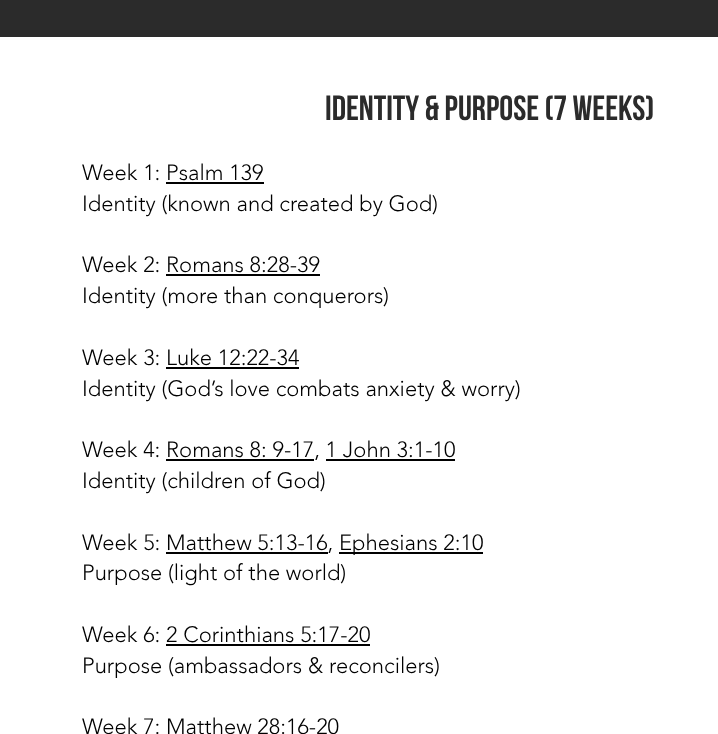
<svg xmlns="http://www.w3.org/2000/svg" width="718" height="734" viewBox="0 0 718 734">
  <rect width="100%" height="100%" fill="#ffffff"/>
  <rect x="0" y="0" width="718" height="37" fill="#2b2b2b"/>
  <text x="325" y="120" font-family="Bebas Neue" font-size="35" font-weight="bold" fill="#2b2b2b">IDENTITY &amp; PURPOSE (7 WEEKS)</text>
  <text x="82" y="180" font-family="'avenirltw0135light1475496'" font-size="22" font-weight="300" fill="#000000">Week 1: Psalm 139</text>
  <rect x="166" y="182" width="98" height="2" fill="#000000"/>
  <text x="82" y="211" font-family="'avenirltw0135light1475496'" font-size="22" font-weight="300" fill="#000000">Identity (known and created by God)</text>
  <text x="82" y="272" font-family="'avenirltw0135light1475496'" font-size="22" font-weight="300" fill="#000000">Week 2: Romans 8:28-39</text>
  <rect x="166" y="274" width="154" height="2" fill="#000000"/>
  <text x="82" y="303" font-family="'avenirltw0135light1475496'" font-size="22" font-weight="300" fill="#000000">Identity (more than conquerors)</text>
  <text x="82" y="365" font-family="'avenirltw0135light1475496'" font-size="22" font-weight="300" fill="#000000">Week 3: Luke 12:22-34</text>
  <rect x="166" y="367" width="133" height="2" fill="#000000"/>
  <text x="82" y="396" font-family="'avenirltw0135light1475496'" font-size="22" font-weight="300" fill="#000000">Identity (God’s love combats anxiety &amp; worry)</text>
  <text x="82" y="457" font-family="'avenirltw0135light1475496'" font-size="22" font-weight="300" fill="#000000">Week 4: Romans 8: 9-17, 1 John 3:1-10</text>
  <rect x="166" y="459" width="148" height="2" fill="#000000"/>
  <rect x="326" y="459" width="129" height="2" fill="#000000"/>
  <text x="82" y="488" font-family="'avenirltw0135light1475496'" font-size="22" font-weight="300" fill="#000000">Identity (children of God)</text>
  <text x="82" y="550" font-family="'avenirltw0135light1475496'" font-size="22" font-weight="300" fill="#000000">Week 5: Matthew 5:13-16,</text>
  <rect x="166" y="552" width="162" height="2" fill="#000000"/>
  <rect x="339" y="552" width="144" height="2" fill="#000000"/>
  <text x="339" y="550" font-family="'avenirltw0135light1475496'" font-size="22" font-weight="300" fill="#000000">Ephesians 2:10</text>
  <text x="82" y="580" font-family="'avenirltw0135light1475496'" font-size="22" font-weight="300" fill="#000000">Purpose (light of the world)</text>
  <text x="82" y="642" font-family="'avenirltw0135light1475496'" font-size="22" font-weight="300" fill="#000000">Week 6: 2 Corinthians 5:17-20</text>
  <rect x="166" y="644" width="204" height="2" fill="#000000"/>
  <text x="82" y="673" font-family="'avenirltw0135light1475496'" font-size="22" font-weight="300" fill="#000000">Purpose (ambassadors &amp; reconcilers)</text>
  <text x="82" y="734" font-family="'avenirltw0135light1475496'" font-size="22" font-weight="300" fill="#000000">Week 7: Matthew 28:16-20</text>
</svg>
